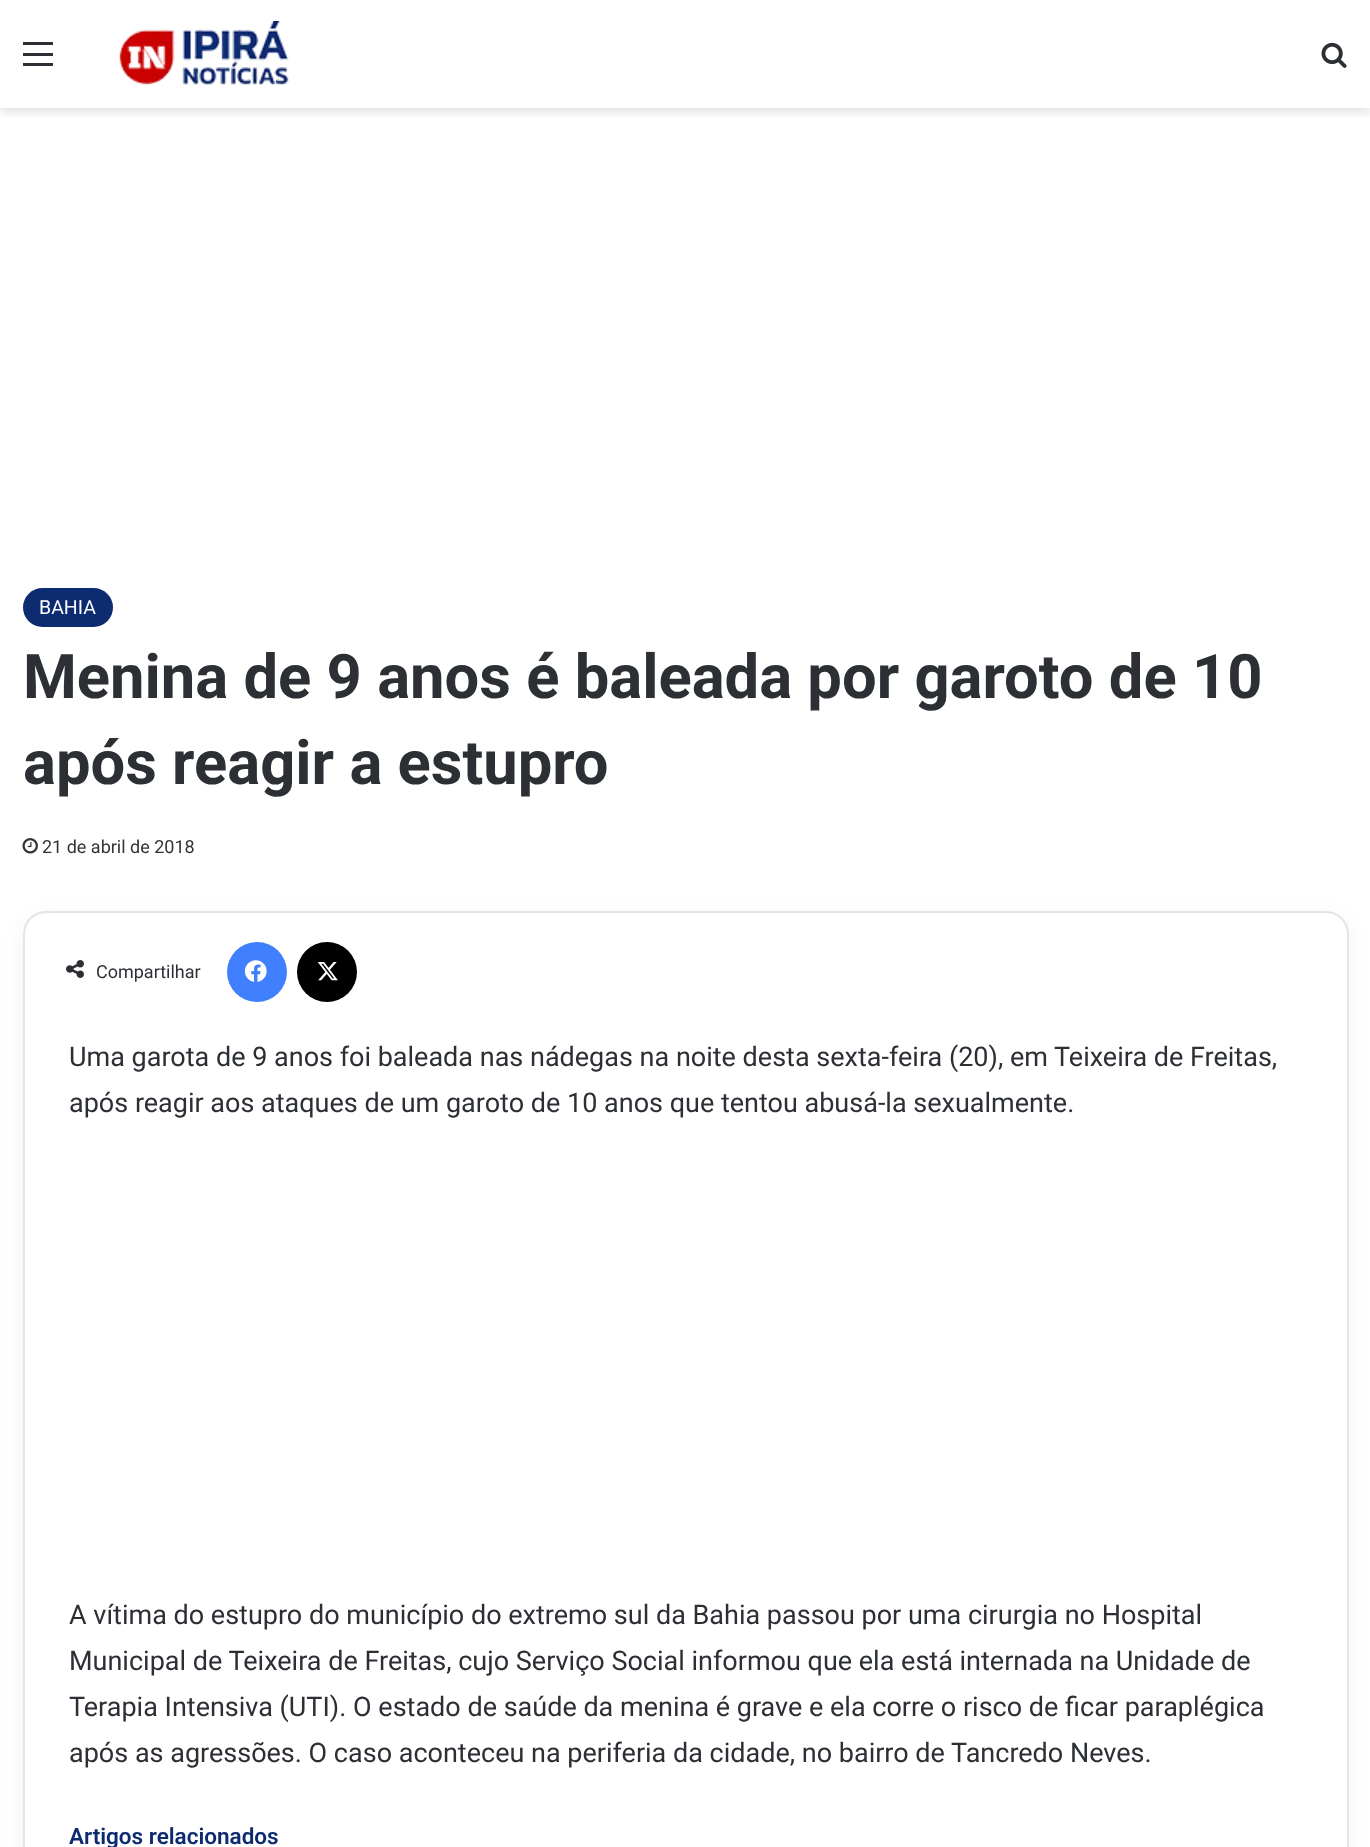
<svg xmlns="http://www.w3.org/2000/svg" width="1370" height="1847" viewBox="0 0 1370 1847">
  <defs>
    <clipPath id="clip1"><rect x="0" y="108" width="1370" height="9"/></clipPath>
    <filter id="blur1" x="-50%" y="-200%" width="200%" height="500%"><feGaussianBlur stdDeviation="5"/></filter>
    <filter id="blur2" x="-50%" y="-200%" width="200%" height="500%"><feGaussianBlur stdDeviation="11"/></filter>
  </defs>
  <rect width="100%" height="100%" fill="#ffffff"/>
  <g clip-path="url(#clip1)">
    <rect x="0" y="5" width="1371" height="108" fill="#000000" fill-opacity="0.1" filter="url(#blur1)"/>
  </g>
  <rect x="23" y="53" width="30" height="3" fill="#2c2f34"/>
  <rect x="23" y="42" width="30" height="3" fill="#2c2f34"/>
  <rect x="23" y="63" width="30" height="3" fill="#2c2f34"/>
  <image x="119" y="21" width="170" height="64" href="img1.png"/>
  <image x="1321" y="42" width="26" height="26" href="img2.png"/>
  <rect x="23" y="588" width="90" height="39" rx="19.5" fill="#0d2b70"/>
  <text x="39" y="614" font-family="Roboto" font-size="19.5" fill="#ffffff">BAHIA</text>
  <text x="23" y="698" font-family="Roboto" font-size="61.5" font-weight="bold" fill="#2c2f34">Menina de 9 anos é baleada por garoto de 10</text>
  <text x="23" y="784" font-family="Roboto" font-size="61.5" font-weight="bold" fill="#2c2f34">após reagir a estupro</text>
  <image x="22" y="838" width="16" height="16" href="img3.png"/>
  <text x="42" y="853" font-family="Roboto" font-size="18" fill="#333333">21 de abril de 2018</text>
  <rect x="23" y="918" width="1326" height="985" rx="23" fill="#000000" fill-opacity="0.05" filter="url(#blur2)"/>
  <rect x="24" y="912" width="1324" height="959" rx="22" fill="#ffffff" stroke="#e5e5e5" stroke-width="2"/>
  <image x="66" y="960" width="18" height="18" href="img4.png"/>
  <text x="96" y="978" font-family="Roboto" font-size="18" fill="#2c2f34">Compartilhar</text>
  <circle cx="257" cy="972" r="30" fill="#4080ff"/>
  <image x="244" y="960" width="23" height="22" href="img5.png"/>
  <circle cx="327" cy="972" r="30" fill="#000000"/>
  <image x="317" y="962" width="21" height="19" href="img6.png"/>
  <text x="69" y="1066" font-family="Roboto" font-size="27" fill="#2c2f34">Uma garota de 9 anos foi baleada nas nádegas na noite desta sexta-feira (20), em Teixeira de Freitas,</text>
  <text x="69" y="1112" font-family="Roboto" font-size="27" fill="#2c2f34">após reagir aos ataques de um garoto de 10 anos que tentou abusá-la sexualmente.</text>
  <text x="69" y="1624" font-family="Roboto" font-size="27" fill="#2c2f34">A vítima do estupro do município do extremo sul da Bahia passou por uma cirurgia no Hospital</text>
  <text x="69" y="1670" font-family="Roboto" font-size="27" fill="#2c2f34">Municipal de Teixeira de Freitas, cujo Serviço Social informou que ela está internada na Unidade de</text>
  <text x="69" y="1716" font-family="Roboto" font-size="27" fill="#2c2f34">Terapia Intensiva (UTI). O estado de saúde da menina é grave e ela corre o risco de ficar paraplégica</text>
  <text x="69" y="1762" font-family="Roboto" font-size="27" fill="#2c2f34">após as agressões. O caso aconteceu na periferia da cidade, no bairro de Tancredo Neves.</text>
  <text x="69" y="1844" font-family="Roboto" font-size="22.5" font-weight="600" fill="#0d2b70">Artigos relacionados</text>
</svg>
